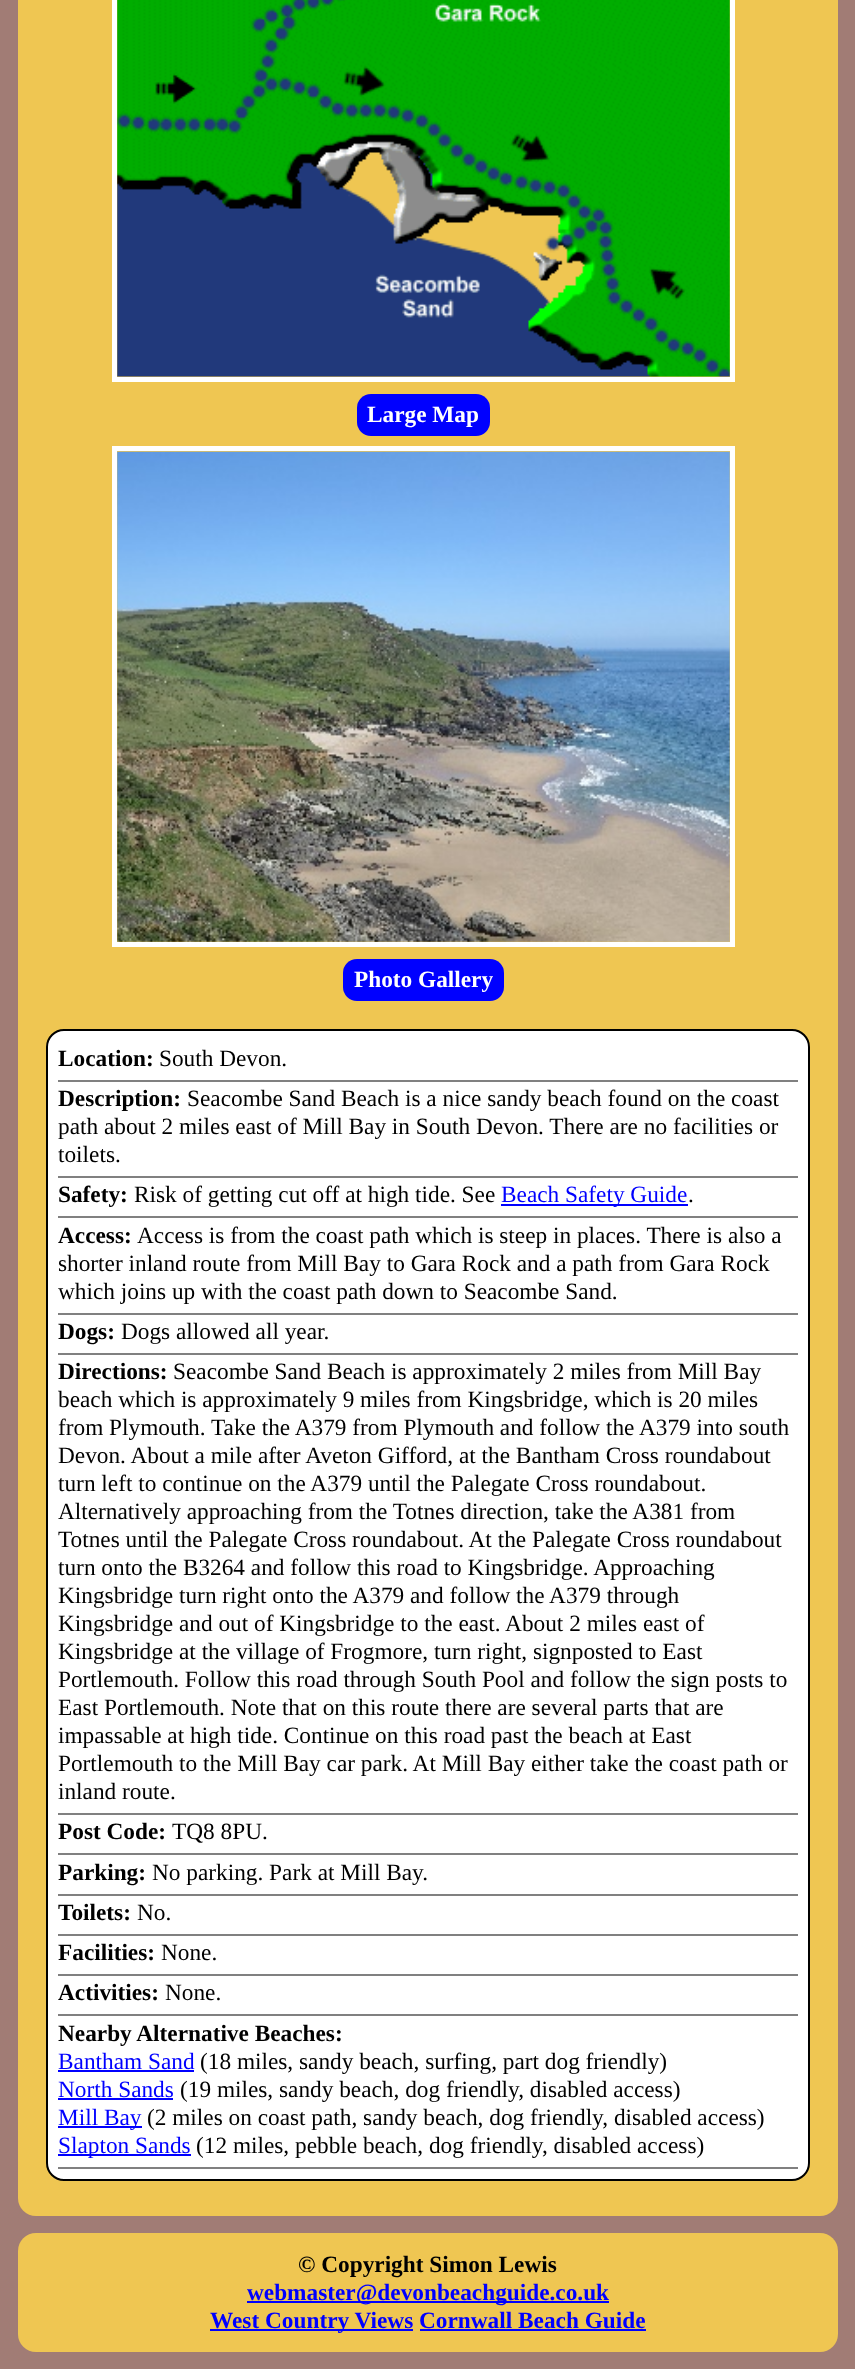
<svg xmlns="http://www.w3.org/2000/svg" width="855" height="2369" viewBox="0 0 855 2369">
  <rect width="100%" height="100%" fill="#a17c75"/>
  <rect x="18" y="-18" width="820" height="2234" rx="18" fill="#efc652"/>
  <rect x="114.5" y="-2.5" width="618" height="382" fill="none" stroke="#ffffff" stroke-width="5"/>
  <image x="117" y="0" width="613" height="377" href="img1.png"/>
  <rect x="357" y="394" width="133" height="42" rx="14" fill="#0000ff"/>
  <text x="367" y="422" font-family="Liberation Serif" font-size="23.3" font-weight="bold" fill="#ffffff">Large Map</text>
  <rect x="114.5" y="448.5" width="618" height="496" fill="none" stroke="#ffffff" stroke-width="5"/>
  <image x="117" y="451" width="613" height="491" href="img2.png"/>
  <rect x="343" y="959" width="161" height="42" rx="14" fill="#0000ff"/>
  <text x="354" y="987" font-family="Liberation Serif" font-size="23.3" font-weight="bold" fill="#ffffff">Photo Gallery</text>
  <rect x="47" y="1030" width="762" height="1150" rx="17" fill="#ffffff" stroke="#000000" stroke-width="2"/>
  <rect x="58" y="1080" width="740" height="2" fill="#808080"/>
  <text x="58" y="1066" font-family="Liberation Serif" font-size="23.3" font-weight="bold" fill="#000000">Location:</text>
  <text x="159" y="1066" font-family="Liberation Serif" font-size="23.3" fill="#000000">South Devon.</text>
  <rect x="58" y="1176" width="740" height="2" fill="#808080"/>
  <text x="58" y="1106" font-family="Liberation Serif" font-size="23.3" font-weight="bold" fill="#000000">Description:</text>
  <text x="187" y="1106" font-family="Liberation Serif" font-size="23.3" fill="#000000">Seacombe Sand Beach is a nice sandy beach found on the coast</text>
  <text x="58" y="1134" font-family="Liberation Serif" font-size="23.3" fill="#000000">path about 2 miles east of Mill Bay in South Devon. There are no facilities or</text>
  <text x="58" y="1162" font-family="Liberation Serif" font-size="23.3" fill="#000000">toilets.</text>
  <rect x="58" y="1216" width="740" height="2" fill="#808080"/>
  <text x="58" y="1202" font-family="Liberation Serif" font-size="23.3" font-weight="bold" fill="#000000">Safety:</text>
  <text x="134" y="1202" font-family="Liberation Serif" font-size="23.3" fill="#000000">Risk of getting cut off at high tide. See</text>
  <rect x="501" y="1204" width="187" height="2" fill="#0000ff"/>
  <text x="501" y="1202" font-family="Liberation Serif" font-size="23.3" fill="#0000ff">Beach Safety Guide</text>
  <text x="688" y="1202" font-family="Liberation Serif" font-size="23.3" fill="#000000">.</text>
  <rect x="58" y="1313" width="740" height="2" fill="#808080"/>
  <text x="58" y="1243" font-family="Liberation Serif" font-size="23.3" font-weight="bold" fill="#000000">Access:</text>
  <text x="137" y="1243" font-family="Liberation Serif" font-size="23.3" fill="#000000">Access is from the coast path which is steep in places. There is also a</text>
  <text x="58" y="1271" font-family="Liberation Serif" font-size="23.3" fill="#000000">shorter inland route from Mill Bay to Gara Rock and a path from Gara Rock</text>
  <text x="58" y="1299" font-family="Liberation Serif" font-size="23.3" fill="#000000">which joins up with the coast path down to Seacombe Sand.</text>
  <rect x="58" y="1353" width="740" height="2" fill="#808080"/>
  <text x="58" y="1339" font-family="Liberation Serif" font-size="23.3" font-weight="bold" fill="#000000">Dogs:</text>
  <text x="121" y="1339" font-family="Liberation Serif" font-size="23.3" fill="#000000">Dogs allowed all year.</text>
  <rect x="58" y="1813" width="740" height="2" fill="#808080"/>
  <text x="58" y="1379" font-family="Liberation Serif" font-size="23.3" font-weight="bold" fill="#000000">Directions:</text>
  <text x="173" y="1379" font-family="Liberation Serif" font-size="23.3" fill="#000000">Seacombe Sand Beach is approximately 2 miles from Mill Bay</text>
  <text x="58" y="1407" font-family="Liberation Serif" font-size="23.3" fill="#000000">beach which is approximately 9 miles from Kingsbridge, which is 20 miles</text>
  <text x="58" y="1435" font-family="Liberation Serif" font-size="23.3" fill="#000000">from Plymouth. Take the A379 from Plymouth and follow the A379 into south</text>
  <text x="58" y="1463" font-family="Liberation Serif" font-size="23.3" fill="#000000">Devon. About a mile after Aveton Gifford, at the Bantham Cross roundabout</text>
  <text x="58" y="1491" font-family="Liberation Serif" font-size="23.3" fill="#000000">turn left to continue on the A379 until the Palegate Cross roundabout.</text>
  <text x="58" y="1519" font-family="Liberation Serif" font-size="23.3" fill="#000000">Alternatively approaching from the Totnes direction, take the A381 from</text>
  <text x="58" y="1547" font-family="Liberation Serif" font-size="23.3" fill="#000000">Totnes until the Palegate Cross roundabout. At the Palegate Cross roundabout</text>
  <text x="58" y="1575" font-family="Liberation Serif" font-size="23.3" fill="#000000">turn onto the B3264 and follow this road to Kingsbridge. Approaching</text>
  <text x="58" y="1603" font-family="Liberation Serif" font-size="23.3" fill="#000000">Kingsbridge turn right onto the A379 and follow the A379 through</text>
  <text x="58" y="1631" font-family="Liberation Serif" font-size="23.3" fill="#000000">Kingsbridge and out of Kingsbridge to the east. About 2 miles east of</text>
  <text x="58" y="1659" font-family="Liberation Serif" font-size="23.3" fill="#000000">Kingsbridge at the village of Frogmore, turn right, signposted to East</text>
  <text x="58" y="1687" font-family="Liberation Serif" font-size="23.3" fill="#000000">Portlemouth. Follow this road through South Pool and follow the sign posts to</text>
  <text x="58" y="1715" font-family="Liberation Serif" font-size="23.3" fill="#000000">East Portlemouth. Note that on this route there are several parts that are</text>
  <text x="58" y="1743" font-family="Liberation Serif" font-size="23.3" fill="#000000">impassable at high tide. Continue on this road past the beach at East</text>
  <text x="58" y="1771" font-family="Liberation Serif" font-size="23.3" fill="#000000">Portlemouth to the Mill Bay car park. At Mill Bay either take the coast path or</text>
  <text x="58" y="1799" font-family="Liberation Serif" font-size="23.3" fill="#000000">inland route.</text>
  <rect x="58" y="1853" width="740" height="2" fill="#808080"/>
  <text x="58" y="1839" font-family="Liberation Serif" font-size="23.3" font-weight="bold" fill="#000000">Post Code:</text>
  <text x="172" y="1839" font-family="Liberation Serif" font-size="23.3" fill="#000000">TQ8 8PU.</text>
  <rect x="58" y="1894" width="740" height="2" fill="#808080"/>
  <text x="58" y="1880" font-family="Liberation Serif" font-size="23.3" font-weight="bold" fill="#000000">Parking:</text>
  <text x="152" y="1880" font-family="Liberation Serif" font-size="23.3" fill="#000000">No parking. Park at Mill Bay.</text>
  <rect x="58" y="1934" width="740" height="2" fill="#808080"/>
  <text x="58" y="1920" font-family="Liberation Serif" font-size="23.3" font-weight="bold" fill="#000000">Toilets:</text>
  <text x="137" y="1920" font-family="Liberation Serif" font-size="23.3" fill="#000000">No.</text>
  <rect x="58" y="1974" width="740" height="2" fill="#808080"/>
  <text x="58" y="1960" font-family="Liberation Serif" font-size="23.3" font-weight="bold" fill="#000000">Facilities:</text>
  <text x="161" y="1960" font-family="Liberation Serif" font-size="23.3" fill="#000000">None.</text>
  <rect x="58" y="2014" width="740" height="2" fill="#808080"/>
  <text x="58" y="2000" font-family="Liberation Serif" font-size="23.3" font-weight="bold" fill="#000000">Activities:</text>
  <text x="165" y="2000" font-family="Liberation Serif" font-size="23.3" fill="#000000">None.</text>
  <rect x="58" y="2167" width="740" height="2" fill="#808080"/>
  <text x="58" y="2041" font-family="Liberation Serif" font-size="23.3" font-weight="bold" fill="#000000">Nearby Alternative Beaches:</text>
  <text x="58" y="2069" font-family="Liberation Serif" font-size="23.3" fill="#0000ff">Bantham Sand</text>
  <rect x="58" y="2070" width="136" height="2" fill="#0000ff"/>
  <text x="200" y="2069" font-family="Liberation Serif" font-size="23.3" fill="#000000">(18 miles, sandy beach, surfing, part dog friendly)</text>
  <text x="58" y="2097" font-family="Liberation Serif" font-size="23.3" fill="#0000ff">North Sands</text>
  <rect x="58" y="2098" width="115" height="2" fill="#0000ff"/>
  <text x="180" y="2097" font-family="Liberation Serif" font-size="23.3" fill="#000000">(19 miles, sandy beach, dog friendly, disabled access)</text>
  <rect x="58" y="2126" width="84" height="2" fill="#0000ff"/>
  <text x="58" y="2125" font-family="Liberation Serif" font-size="23.3" fill="#0000ff">Mill Bay</text>
  <text x="147" y="2125" font-family="Liberation Serif" font-size="23.3" fill="#000000">(2 miles on coast path, sandy beach, dog friendly, disabled access)</text>
  <rect x="58" y="2154" width="133" height="2" fill="#0000ff"/>
  <text x="58" y="2153" font-family="Liberation Serif" font-size="23.3" fill="#0000ff">Slapton Sands</text>
  <text x="196" y="2153" font-family="Liberation Serif" font-size="23.3" fill="#000000">(12 miles, pebble beach, dog friendly, disabled access)</text>
  <rect x="18" y="2233" width="820" height="119" rx="18" fill="#efc652"/>
  <text x="298" y="2272" font-family="Liberation Serif" font-size="23.3" font-weight="bold" fill="#000000">© Copyright Simon Lewis</text>
  <rect x="247" y="2301" width="362" height="2" fill="#0000ff"/>
  <text x="247" y="2300" font-family="Liberation Serif" font-size="23.3" font-weight="bold" fill="#0000ff">webmaster@devonbeachguide.co.uk</text>
  <rect x="210" y="2329" width="203" height="2" fill="#0000ff"/>
  <text x="210" y="2328" font-family="Liberation Serif" font-size="23.3" font-weight="bold" fill="#0000ff">West Country Views Cornwall Beach Guide</text>
  <rect x="420" y="2329" width="226" height="2" fill="#0000ff"/>
</svg>
